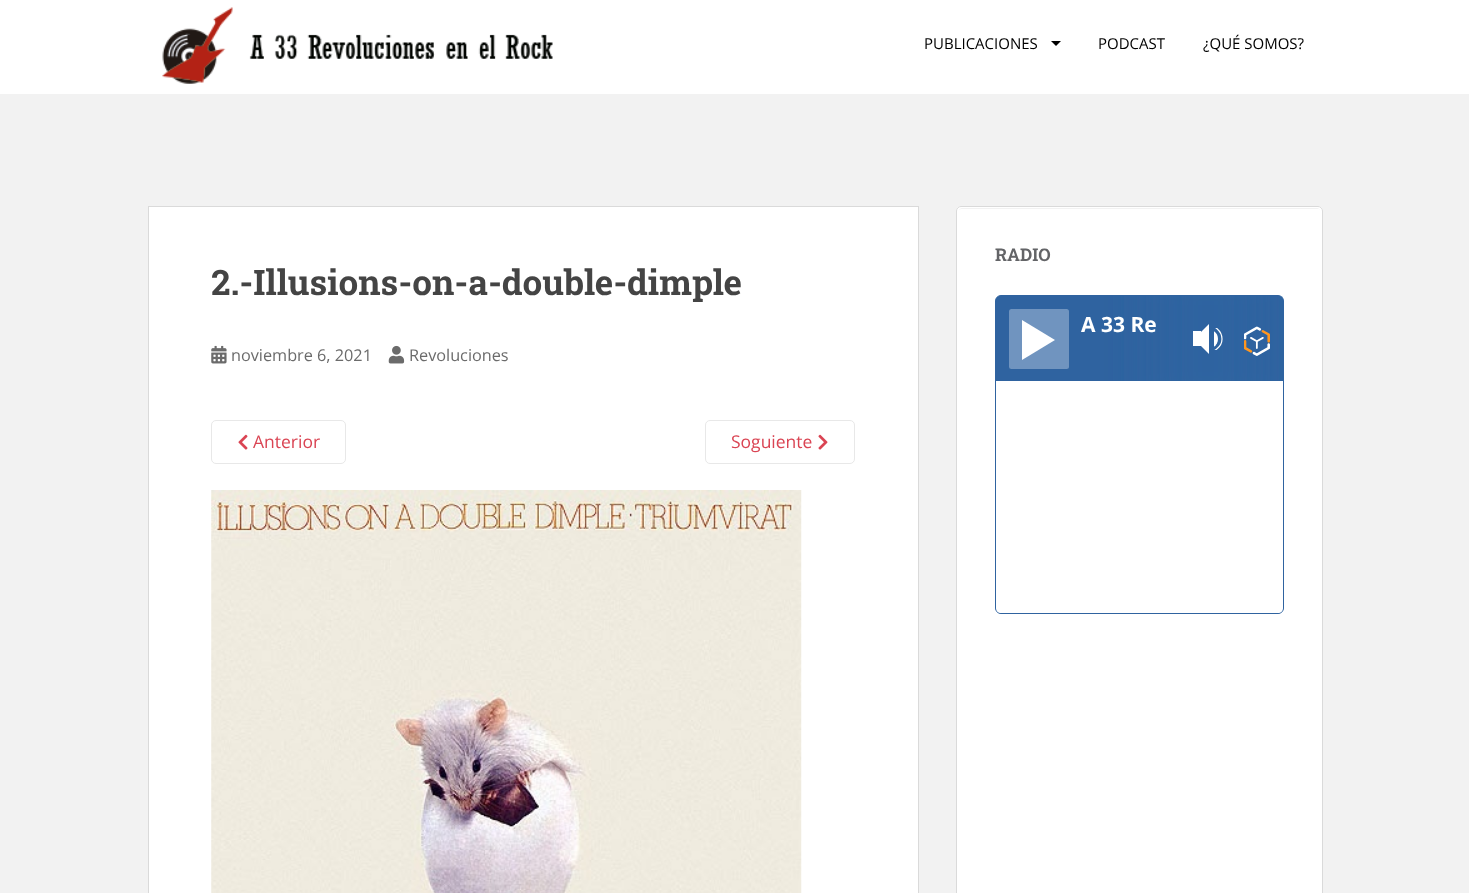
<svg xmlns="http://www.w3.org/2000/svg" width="1469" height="893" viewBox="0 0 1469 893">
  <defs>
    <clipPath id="clip1"><rect x="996" y="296" width="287" height="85"/></clipPath>
    <filter id="blur1" x="-50%" y="-200%" width="200%" height="500%"><feGaussianBlur stdDeviation="20"/></filter>
    <clipPath id="clip2"><rect x="1214" y="328" width="9" height="22"/></clipPath>
  </defs>
  <rect width="100%" height="100%" fill="#f2f2f2"/>
  <rect x="0" y="0" width="1469" height="94" fill="#ffffff"/>
  <image x="162" y="7" width="391" height="77" href="img1.png"/>
  <text x="924" y="49" font-family="Open Sans" font-size="15" fill="#000000">PUBLICACIONES</text>
  <path d="M1051 41H1061L1056 46Z" fill="#000000"/>
  <text x="1098" y="49" font-family="Open Sans" font-size="15" fill="#000000">PODCAST</text>
  <text x="1203" y="49" font-family="Open Sans" font-size="15" fill="#000000">¿QUÉ SOMOS?</text>
  <rect x="148.5" y="206.5" width="770" height="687" fill="#ffffff" stroke="#dadada"/>
  <text x="211" y="295" font-family="Roboto Slab" font-size="35" font-weight="bold" fill="#444444">2.-Illusions-on-a-double-dimple</text>
  <image x="211" y="345" width="16" height="19" href="img2.png"/>
  <text x="231" y="361" font-family="Open Sans" font-size="16.25" fill="#6b6b6b">noviembre 6, 2021</text>
  <image x="388" y="345" width="17" height="19" href="img3.png"/>
  <text x="409" y="361" font-family="Open Sans" font-size="16.25" fill="#6b6b6b">Revoluciones</text>
  <rect x="211.5" y="420.5" width="134" height="43" rx="4.5" fill="none" stroke="#e8e8e8"/>
  <image x="238" y="434" width="10" height="16" href="img4.png"/>
  <text x="253" y="448" font-family="Open Sans" font-size="17.5" fill="#da4453">Anterior</text>
  <rect x="705.5" y="420.5" width="149" height="43" rx="4.5" fill="none" stroke="#e8e8e8"/>
  <text x="731" y="448" font-family="Open Sans" font-size="17.5" fill="#da4453">Soguiente</text>
  <image x="818" y="434" width="10" height="16" href="img5.png"/>
  <image x="211" y="490" width="591" height="403" href="img6.png"/>
  <rect x="956" y="206" width="367" height="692" rx="5" fill="#ffffff"/>
  <path d="M961 209H1319L1320 210C1320 209 1318 208 1317 208H962C961 208 959 209 959 210Z" fill="#f2f2f2"/>
  <rect x="956.5" y="206.5" width="366" height="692" rx="4.5" fill="none" stroke="#dadada"/>
  <text x="995" y="261" font-family="Roboto Slab" font-size="17.5" font-weight="bold" fill="#636467">RADIO</text>
  <rect x="995.5" y="295.5" width="288" height="318" rx="5.5" fill="#2f63a0" stroke="#2f63a0"/>
  <path d="M996 381H1283V608C1283 611 1281 613 1278 613H1001C998 613 996 611 996 608Z" fill="#ffffff"/>
  <g clip-path="url(#clip1)">
    <rect x="1153" y="256" width="110" height="165" fill="#2f63a0" filter="url(#blur1)"/>
  </g>
  <rect x="1193" y="331" width="8" height="15" fill="#ffffff"/>
  <path d="M1209 324V354L1194 339Z" fill="#ffffff"/>
  <g clip-path="url(#clip2)">
    <path d="M1205 324.5C1214.5 324.5 1222 331 1222 339C1222 346.5 1214.5 353 1205 353C1195.5 353 1188 346.5 1188 339C1188 331 1195.5 324.5 1205 324.5Z" fill="none" stroke="#ffffff" stroke-width="1.2"/>
    <path d="M1209 330C1221 330 1221 348 1209 348C1197 348 1197 330 1209 330Z" fill="#ffffff"/>
  </g>
  <rect x="1009" y="309" width="60" height="60" rx="2.5" fill="#7094bf"/>
  <path d="M1022 360V320L1055 340Z" fill="#ffffff"/>
  <text x="1081" y="332" font-family="Open Sans" font-size="21" font-weight="bold" fill="#ffffff">A 33 Re</text>
  <image x="1244" y="326" width="26" height="30" href="img7.png"/>
</svg>
